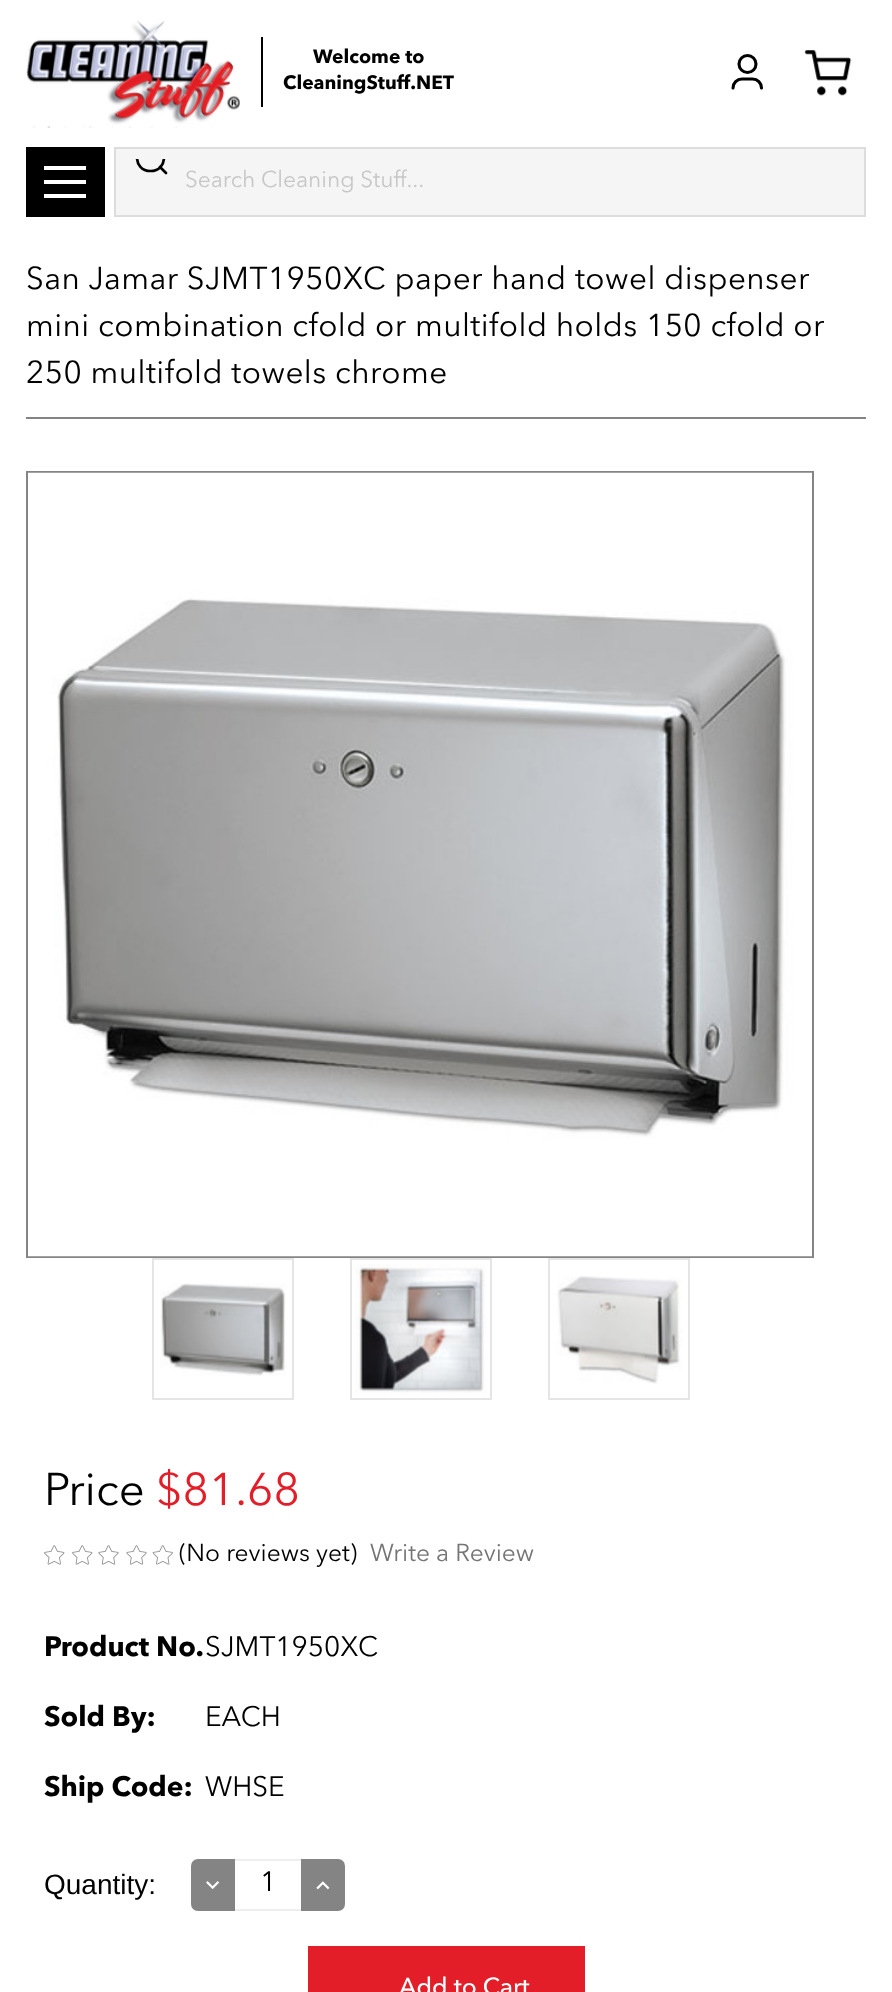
<svg xmlns="http://www.w3.org/2000/svg" width="892" height="1992" viewBox="0 0 892 1992">
  <defs>
    <clipPath id="clip1"><rect x="130" y="159" width="43" height="43"/></clipPath>
  </defs>
  <rect width="100%" height="100%" fill="#ffffff"/>
  <image x="26" y="20" width="214" height="108" href="img1.png"/>
  <rect x="261" y="37" width="2" height="70" fill="#000000"/>
  <text x="313" y="63" font-family="Avenir Next" font-size="19.25" font-weight="bold" fill="#000000">Welcome to</text>
  <text x="283" y="89" font-family="Avenir Next" font-size="19.25" font-weight="bold" fill="#000000">CleaningStuff.NET</text>
  <path d="M733 88C733 83 737 79 742 79H752.5C757.5 79 761.5 83 761.5 88" fill="none" stroke="#000000" stroke-width="3.1" stroke-linecap="round" stroke-linejoin="round"/>
  <circle cx="747.5" cy="64" r="8.5" fill="none" stroke="#000000" stroke-width="3.1"/>
  <image x="804" y="50" width="48" height="46" href="img2.png"/>
  <rect x="26" y="147" width="79" height="70" fill="#000000"/>
  <rect x="44" y="180" width="42" height="4" fill="#ffffff"/>
  <rect x="44" y="166" width="42" height="4" fill="#ffffff"/>
  <rect x="44" y="194" width="42" height="4" fill="#ffffff"/>
  <rect x="115" y="148" width="750" height="68" fill="#f5f5f5" stroke="#dddddd" stroke-width="2"/>
  <g clip-path="url(#clip1)">
    <path d="M150.5 171C168.5 171 168.5 144 150.5 144C132.5 144 132.5 171 150.5 171Z" fill="none" stroke="#000000" stroke-width="2.7" stroke-linecap="round" stroke-linejoin="round"/>
  </g>
  <path d="M160 167L166 173" fill="none" stroke="#000000" stroke-width="2.7" stroke-linecap="round" stroke-linejoin="round"/>
  <text x="185" y="187" font-family="Avenir Next" font-size="22.75" fill="#c7c7c7">Search Cleaning Stuff...</text>
  <rect x="26" y="417" width="840" height="2" fill="#848484"/>
  <text x="26" y="289" font-family="Avenir Next" font-size="31.5" letter-spacing="0.45" fill="#000000">San Jamar SJMT1950XC paper hand towel dispenser</text>
  <text x="26" y="336" font-family="Avenir Next" font-size="31.5" letter-spacing="0.45" fill="#000000">mini combination cfold or multifold holds 150 cfold or</text>
  <text x="26" y="383" font-family="Avenir Next" font-size="31.5" letter-spacing="0.45" fill="#000000">250 multifold towels chrome</text>
  <rect x="27" y="472" width="786" height="785" fill="none" stroke="#848484" stroke-width="2"/>
  <image x="28" y="472" width="784" height="785" href="img3.png"/>
  <rect x="153" y="1259" width="140" height="140" fill="none" stroke="#e5e5e5" stroke-width="2"/>
  <image x="160" y="1283" width="126" height="93" href="img4.png"/>
  <rect x="351" y="1259" width="140" height="140" fill="none" stroke="#e5e5e5" stroke-width="2"/>
  <image x="355" y="1264" width="131" height="130" href="img5.png"/>
  <rect x="549" y="1259" width="140" height="140" fill="none" stroke="#e5e5e5" stroke-width="2"/>
  <image x="557" y="1276" width="125" height="108" href="img6.png"/>
  <text x="44" y="1505" font-family="Avenir Next" font-size="45.5" fill="#000000">Price</text>
  <text x="156" y="1505" font-family="Avenir Next" font-size="45.5" fill="#e41e28">$81.68</text>
  <image x="44" y="1545" width="21" height="20" href="img7.png"/>
  <image x="72" y="1545" width="21" height="20" href="img7.png"/>
  <image x="98" y="1545" width="21" height="20" href="img8.png"/>
  <image x="126" y="1545" width="21" height="20" href="img8.png"/>
  <image x="152" y="1545" width="21" height="20" href="img9.png"/>
  <text x="179" y="1561" font-family="Avenir Next" font-size="24.5" fill="#000000">(No reviews yet)</text>
  <text x="370" y="1561" font-family="Avenir Next" font-size="24.5" fill="#757575">Write a Review</text>
  <text x="44" y="1656" font-family="Avenir Next" font-size="28" font-weight="bold" fill="#000000">Product No.</text>
  <text x="205" y="1656" font-family="Avenir Next" font-size="28" fill="#000000">SJMT1950XC</text>
  <text x="44" y="1726" font-family="Avenir Next" font-size="28" font-weight="bold" fill="#000000">Sold By:</text>
  <text x="205" y="1726" font-family="Avenir Next" font-size="28" fill="#000000">EACH</text>
  <text x="44" y="1796" font-family="Avenir Next" font-size="28" font-weight="bold" fill="#000000">Ship Code:</text>
  <text x="205" y="1796" font-family="Avenir Next" font-size="28" fill="#000000">WHSE</text>
  <text x="44" y="1894" font-family="Liberation Sans" font-size="28" fill="#000000">Quantity:</text>
  <rect x="234" y="1860" width="68" height="50" fill="none" stroke="#eeeeee" stroke-width="2"/>
  <path d="M198 1860H234V1910H198C194.5 1910 192 1907.5 192 1904V1866C192 1862.5 194.5 1860 198 1860Z" fill="#848484" stroke="#848484" stroke-width="2"/>
  <image x="206" y="1881" width="14" height="8" href="img10.png"/>
  <text x="260" y="1891" font-family="Avenir Next" font-size="28" fill="#000000">1</text>
  <path d="M302 1860H338C341.5 1860 344 1862.5 344 1866V1904C344 1907.5 341.5 1910 338 1910H302Z" fill="#848484" stroke="#848484" stroke-width="2"/>
  <image x="316" y="1881" width="14" height="9" href="img11.png"/>
  <rect x="308" y="1946" width="277" height="46" fill="#e41e28"/>
  <text x="399" y="1995" font-family="Avenir Next" font-size="24.5" font-weight="500" fill="#ffffff">Add to Cart</text>
</svg>
